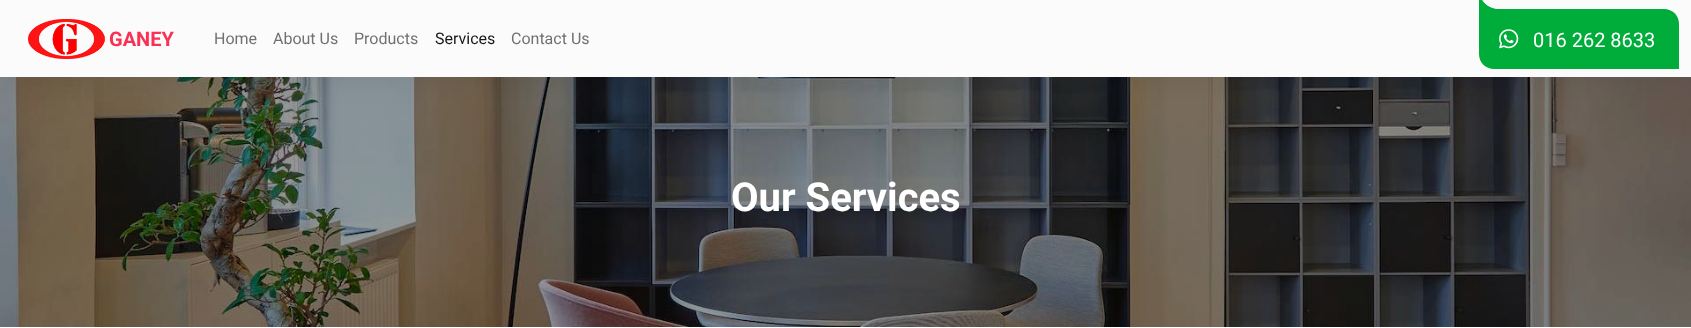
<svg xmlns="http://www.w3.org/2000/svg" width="1691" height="328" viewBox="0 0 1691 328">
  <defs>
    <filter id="blur1" x="-50%" y="-200%" width="200%" height="500%"><feGaussianBlur stdDeviation="10"/></filter>
  </defs>
  <rect width="100%" height="100%" fill="#ffffff"/>
  <image x="0" y="77" width="1691" height="250" href="img3.png"/>
  <rect x="0" y="10" width="1691" height="77" fill="#000000" fill-opacity="0.05" filter="url(#blur1)"/>
  <rect x="0" y="0" width="1691" height="77" fill="#fbfbfb"/>
  <image x="28" y="19" width="77" height="40" href="img1.png"/>
  <text x="109" y="46" font-family="Roboto" font-size="20" font-weight="bold" fill="#f93154">GANEY</text>
  <text x="214" y="44" font-family="Roboto" font-size="16" fill="#717171">Home</text>
  <text x="273" y="44" font-family="Roboto" font-size="16" fill="#717171">About Us</text>
  <text x="354" y="44" font-family="Roboto" font-size="16" fill="#717171">Products</text>
  <text x="435" y="44" font-family="Roboto" font-size="16" fill="#191919">Services</text>
  <text x="511" y="44" font-family="Roboto" font-size="16" fill="#717171">Contact Us</text>
  <path d="M1479 9H1664C1672.5 9 1679 15.5 1679 24V69H1494C1485.5 69 1479 62.5 1479 54Z" fill="#00ad3a"/>
  <image x="1499" y="29" width="20" height="20" href="img2.png"/>
  <path d="M1479-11V13C1483 32 1504 29 1519 29V9H1499C1488 9 1479 0 1479-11Z" fill="#00ad3a"/>
  <path d="M1479-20H1519V9H1499C1488 9 1479 0 1479-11Z" fill="#fbfbfb"/>
  <text x="1533" y="47" font-family="Roboto" font-size="20" fill="#ffffff">016 262 8633</text>
  <text x="731" y="211" font-family="Roboto" font-size="40" font-weight="bold" fill="#ffffff">Our Services</text>
</svg>
